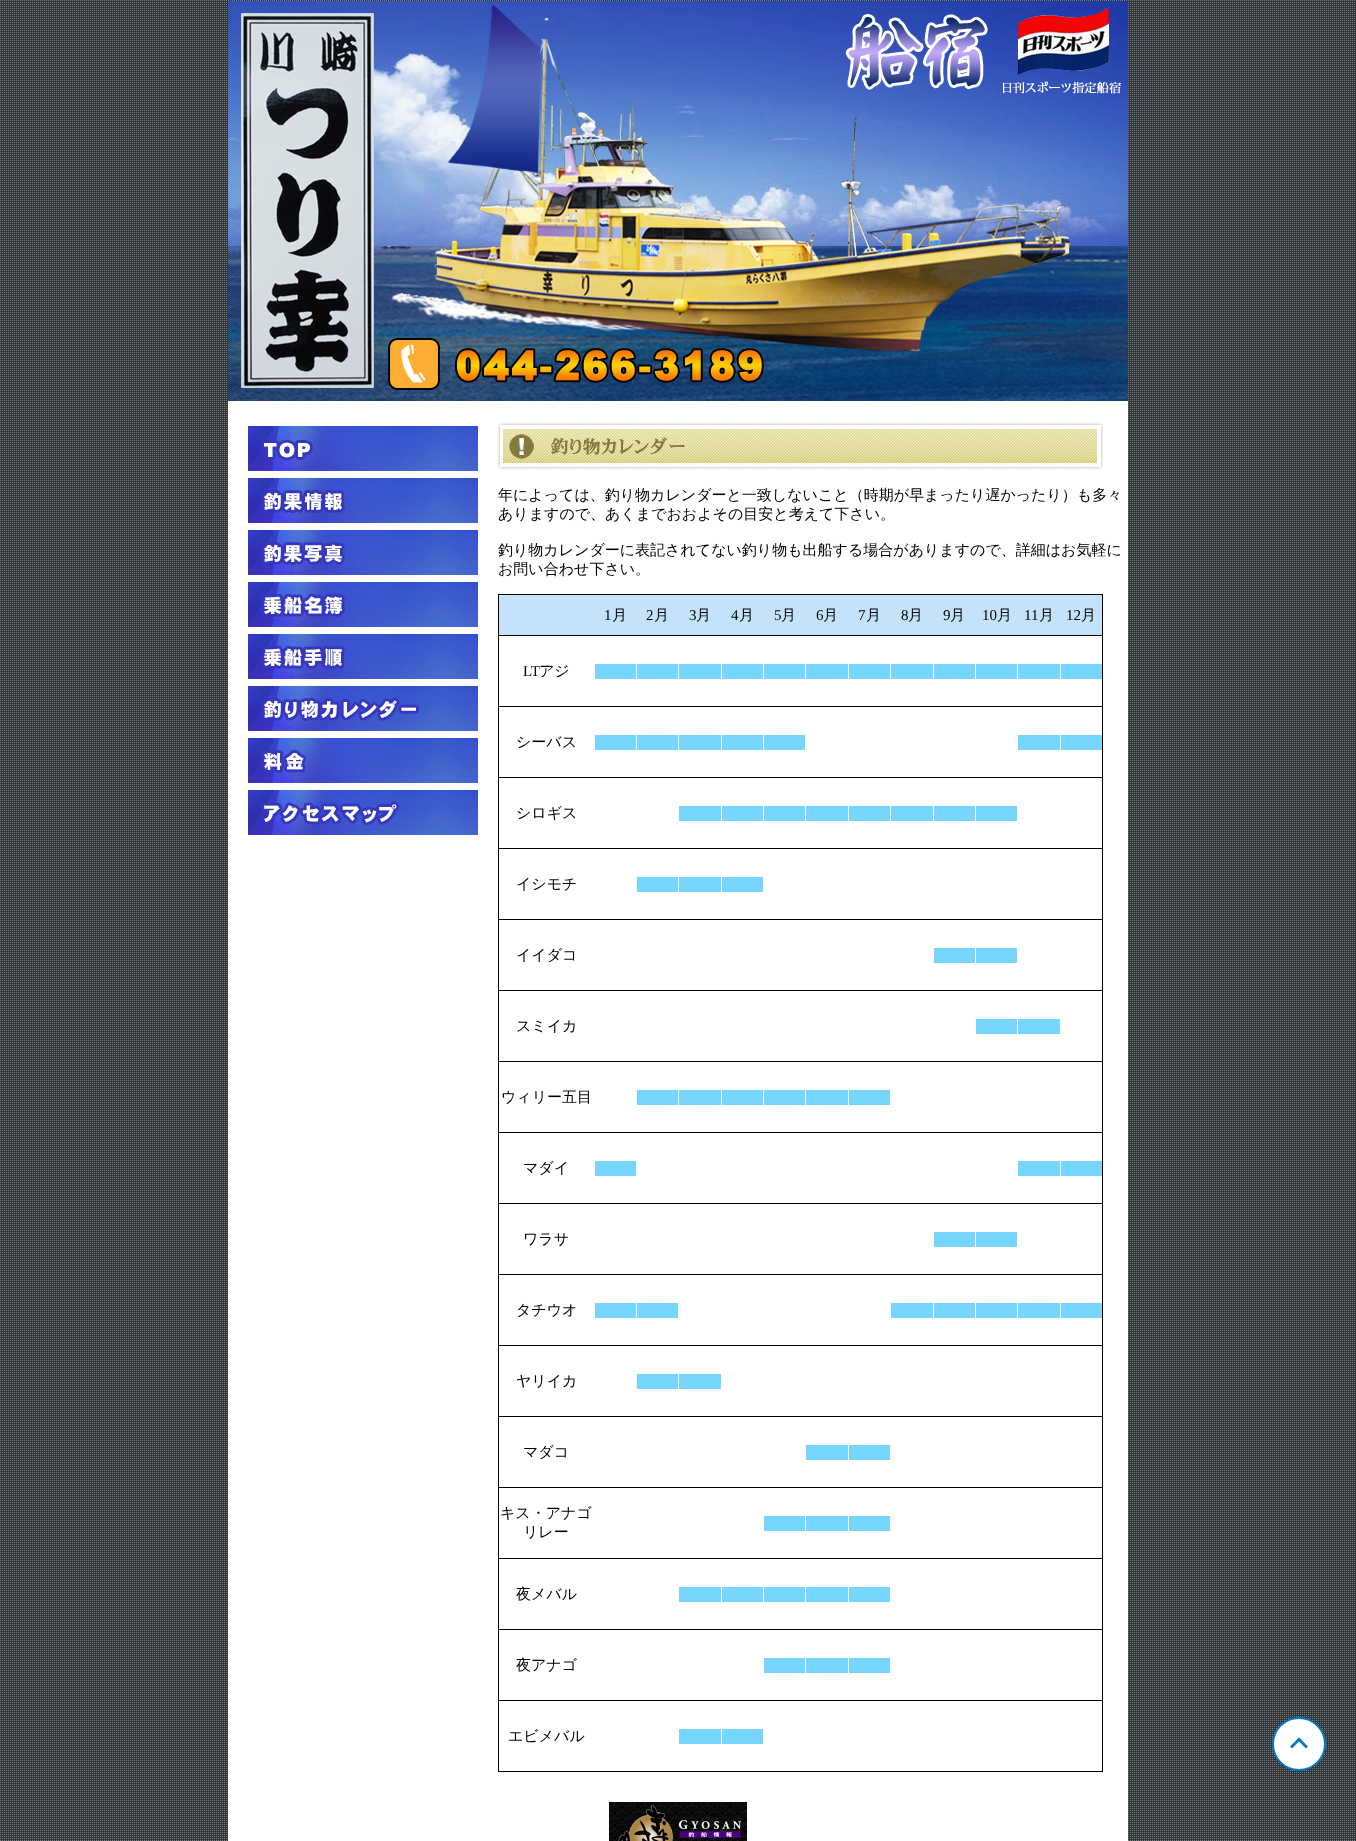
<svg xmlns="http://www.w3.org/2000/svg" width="1356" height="1841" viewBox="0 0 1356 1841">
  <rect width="100%" height="100%" fill="#ffffff"/>
  <image x="0" y="0" width="1356" height="1841" href="img1.png"/>
  <rect x="228" y="401" width="900" height="1440" fill="#ffffff"/>
  <image x="228" y="1" width="900" height="400" href="img2.png"/>
  <image x="248" y="426" width="230" height="45" href="img3.png"/>
  <image x="248" y="478" width="230" height="45" href="img4.png"/>
  <image x="248" y="530" width="230" height="45" href="img5.png"/>
  <image x="248" y="582" width="230" height="45" href="img6.png"/>
  <image x="248" y="634" width="230" height="45" href="img7.png"/>
  <image x="248" y="686" width="230" height="45" href="img8.png"/>
  <image x="248" y="738" width="230" height="45" href="img9.png"/>
  <image x="248" y="790" width="230" height="45" href="img10.png"/>
  <image x="498" y="422" width="605" height="48" href="img11.png"/>
  <text x="498" y="500" font-family="WenQuanYi Zen Hei" font-size="15" font-weight="500" fill="#000000">年によっては、釣り物カレンダーと一致しないこと（時期が早まったり遅かったり）も多々</text>
  <text x="498" y="519" font-family="WenQuanYi Zen Hei" font-size="15" font-weight="500" fill="#000000">ありますので、あくまでおおよその目安と考えて下さい。</text>
  <text x="498" y="555" font-family="WenQuanYi Zen Hei" font-size="15" font-weight="500" fill="#000000">釣り物カレンダーに表記されてない釣り物も出船する場合がありますので、詳細はお気軽に</text>
  <text x="498" y="574" font-family="WenQuanYi Zen Hei" font-size="15" font-weight="500" fill="#000000">お問い合わせ下さい。</text>
  <rect x="498" y="594" width="605" height="1178" fill="#000000"/>
  <rect x="499" y="595" width="603" height="40" fill="#c4e3fb"/>
  <text x="604" y="620" font-family="Liberation Serif" font-size="15" fill="#000000">1</text>
  <text x="612" y="620" font-family="WenQuanYi Zen Hei" font-size="15" font-weight="500" fill="#000000">月</text>
  <text x="646" y="620" font-family="Liberation Serif" font-size="15" fill="#000000">2</text>
  <text x="654" y="620" font-family="WenQuanYi Zen Hei" font-size="15" font-weight="500" fill="#000000">月</text>
  <text x="689" y="620" font-family="Liberation Serif" font-size="15" fill="#000000">3</text>
  <text x="696" y="620" font-family="WenQuanYi Zen Hei" font-size="15" font-weight="500" fill="#000000">月</text>
  <text x="731" y="620" font-family="Liberation Serif" font-size="15" fill="#000000">4</text>
  <text x="739" y="620" font-family="WenQuanYi Zen Hei" font-size="15" font-weight="500" fill="#000000">月</text>
  <text x="774" y="620" font-family="Liberation Serif" font-size="15" fill="#000000">5</text>
  <text x="781" y="620" font-family="WenQuanYi Zen Hei" font-size="15" font-weight="500" fill="#000000">月</text>
  <text x="816" y="620" font-family="Liberation Serif" font-size="15" fill="#000000">6</text>
  <text x="823" y="620" font-family="WenQuanYi Zen Hei" font-size="15" font-weight="500" fill="#000000">月</text>
  <text x="858" y="620" font-family="Liberation Serif" font-size="15" fill="#000000">7</text>
  <text x="866" y="620" font-family="WenQuanYi Zen Hei" font-size="15" font-weight="500" fill="#000000">月</text>
  <text x="901" y="620" font-family="Liberation Serif" font-size="15" fill="#000000">8</text>
  <text x="908" y="620" font-family="WenQuanYi Zen Hei" font-size="15" font-weight="500" fill="#000000">月</text>
  <text x="943" y="620" font-family="Liberation Serif" font-size="15" fill="#000000">9</text>
  <text x="950" y="620" font-family="WenQuanYi Zen Hei" font-size="15" font-weight="500" fill="#000000">月</text>
  <text x="982" y="620" font-family="Liberation Serif" font-size="15" fill="#000000">10</text>
  <text x="997" y="620" font-family="WenQuanYi Zen Hei" font-size="15" font-weight="500" fill="#000000">月</text>
  <text x="1024" y="620" font-family="Liberation Serif" font-size="15" fill="#000000">11</text>
  <text x="1039" y="620" font-family="WenQuanYi Zen Hei" font-size="15" font-weight="500" fill="#000000">月</text>
  <text x="1066" y="620" font-family="Liberation Serif" font-size="15" fill="#000000">12</text>
  <text x="1081" y="620" font-family="WenQuanYi Zen Hei" font-size="15" font-weight="500" fill="#000000">月</text>
  <rect x="499" y="636" width="603" height="70" fill="#ffffff"/>
  <text x="523" y="676" font-family="Liberation Serif" font-size="15" fill="#000000">LT</text>
  <text x="539" y="676" font-family="WenQuanYi Zen Hei" font-size="15" font-weight="500" fill="#000000">アジ</text>
  <rect x="595" y="664" width="41" height="15" fill="#76d6ff"/>
  <rect x="637" y="664" width="41" height="15" fill="#76d6ff"/>
  <rect x="679" y="664" width="42" height="15" fill="#76d6ff"/>
  <rect x="722" y="664" width="41" height="15" fill="#76d6ff"/>
  <rect x="764" y="664" width="41" height="15" fill="#76d6ff"/>
  <rect x="806" y="664" width="42" height="15" fill="#76d6ff"/>
  <rect x="849" y="664" width="41" height="15" fill="#76d6ff"/>
  <rect x="891" y="664" width="42" height="15" fill="#76d6ff"/>
  <rect x="934" y="664" width="41" height="15" fill="#76d6ff"/>
  <rect x="976" y="664" width="41" height="15" fill="#76d6ff"/>
  <rect x="1018" y="664" width="42" height="15" fill="#76d6ff"/>
  <rect x="1061" y="664" width="41" height="15" fill="#76d6ff"/>
  <rect x="499" y="707" width="603" height="70" fill="#ffffff"/>
  <text x="516" y="747" font-family="WenQuanYi Zen Hei" font-size="15" font-weight="500" fill="#000000">シーバス</text>
  <rect x="595" y="735" width="41" height="15" fill="#76d6ff"/>
  <rect x="637" y="735" width="41" height="15" fill="#76d6ff"/>
  <rect x="679" y="735" width="42" height="15" fill="#76d6ff"/>
  <rect x="722" y="735" width="41" height="15" fill="#76d6ff"/>
  <rect x="764" y="735" width="41" height="15" fill="#76d6ff"/>
  <rect x="1018" y="735" width="42" height="15" fill="#76d6ff"/>
  <rect x="1061" y="735" width="41" height="15" fill="#76d6ff"/>
  <rect x="499" y="778" width="603" height="70" fill="#ffffff"/>
  <text x="516" y="818" font-family="WenQuanYi Zen Hei" font-size="15" font-weight="500" fill="#000000">シロギス</text>
  <rect x="679" y="806" width="42" height="15" fill="#76d6ff"/>
  <rect x="722" y="806" width="41" height="15" fill="#76d6ff"/>
  <rect x="764" y="806" width="41" height="15" fill="#76d6ff"/>
  <rect x="806" y="806" width="42" height="15" fill="#76d6ff"/>
  <rect x="849" y="806" width="41" height="15" fill="#76d6ff"/>
  <rect x="891" y="806" width="42" height="15" fill="#76d6ff"/>
  <rect x="934" y="806" width="41" height="15" fill="#76d6ff"/>
  <rect x="976" y="806" width="41" height="15" fill="#76d6ff"/>
  <rect x="499" y="849" width="603" height="70" fill="#ffffff"/>
  <text x="516" y="889" font-family="WenQuanYi Zen Hei" font-size="15" font-weight="500" fill="#000000">イシモチ</text>
  <rect x="637" y="877" width="41" height="15" fill="#76d6ff"/>
  <rect x="679" y="877" width="42" height="15" fill="#76d6ff"/>
  <rect x="722" y="877" width="41" height="15" fill="#76d6ff"/>
  <rect x="499" y="920" width="603" height="70" fill="#ffffff"/>
  <text x="516" y="960" font-family="WenQuanYi Zen Hei" font-size="15" font-weight="500" fill="#000000">イイダコ</text>
  <rect x="934" y="948" width="41" height="15" fill="#76d6ff"/>
  <rect x="976" y="948" width="41" height="15" fill="#76d6ff"/>
  <rect x="499" y="991" width="603" height="70" fill="#ffffff"/>
  <text x="516" y="1031" font-family="WenQuanYi Zen Hei" font-size="15" font-weight="500" fill="#000000">スミイカ</text>
  <rect x="976" y="1019" width="41" height="15" fill="#76d6ff"/>
  <rect x="1018" y="1019" width="42" height="15" fill="#76d6ff"/>
  <rect x="499" y="1062" width="603" height="70" fill="#ffffff"/>
  <text x="501" y="1102" font-family="WenQuanYi Zen Hei" font-size="15" font-weight="500" fill="#000000">ウィリー五目</text>
  <rect x="637" y="1090" width="41" height="15" fill="#76d6ff"/>
  <rect x="679" y="1090" width="42" height="15" fill="#76d6ff"/>
  <rect x="722" y="1090" width="41" height="15" fill="#76d6ff"/>
  <rect x="764" y="1090" width="41" height="15" fill="#76d6ff"/>
  <rect x="806" y="1090" width="42" height="15" fill="#76d6ff"/>
  <rect x="849" y="1090" width="41" height="15" fill="#76d6ff"/>
  <rect x="499" y="1133" width="603" height="70" fill="#ffffff"/>
  <text x="523" y="1173" font-family="WenQuanYi Zen Hei" font-size="15" font-weight="500" fill="#000000">マダイ</text>
  <rect x="595" y="1161" width="41" height="15" fill="#76d6ff"/>
  <rect x="1018" y="1161" width="42" height="15" fill="#76d6ff"/>
  <rect x="1061" y="1161" width="41" height="15" fill="#76d6ff"/>
  <rect x="499" y="1204" width="603" height="70" fill="#ffffff"/>
  <text x="523" y="1244" font-family="WenQuanYi Zen Hei" font-size="15" font-weight="500" fill="#000000">ワラサ</text>
  <rect x="934" y="1232" width="41" height="15" fill="#76d6ff"/>
  <rect x="976" y="1232" width="41" height="15" fill="#76d6ff"/>
  <rect x="499" y="1275" width="603" height="70" fill="#ffffff"/>
  <text x="516" y="1315" font-family="WenQuanYi Zen Hei" font-size="15" font-weight="500" fill="#000000">タチウオ</text>
  <rect x="595" y="1303" width="41" height="15" fill="#76d6ff"/>
  <rect x="637" y="1303" width="41" height="15" fill="#76d6ff"/>
  <rect x="891" y="1303" width="42" height="15" fill="#76d6ff"/>
  <rect x="934" y="1303" width="41" height="15" fill="#76d6ff"/>
  <rect x="976" y="1303" width="41" height="15" fill="#76d6ff"/>
  <rect x="1018" y="1303" width="42" height="15" fill="#76d6ff"/>
  <rect x="1061" y="1303" width="41" height="15" fill="#76d6ff"/>
  <rect x="499" y="1346" width="603" height="70" fill="#ffffff"/>
  <text x="516" y="1386" font-family="WenQuanYi Zen Hei" font-size="15" font-weight="500" fill="#000000">ヤリイカ</text>
  <rect x="637" y="1374" width="41" height="15" fill="#76d6ff"/>
  <rect x="679" y="1374" width="42" height="15" fill="#76d6ff"/>
  <rect x="499" y="1417" width="603" height="70" fill="#ffffff"/>
  <text x="523" y="1457" font-family="WenQuanYi Zen Hei" font-size="15" font-weight="500" fill="#000000">マダコ</text>
  <rect x="806" y="1445" width="42" height="15" fill="#76d6ff"/>
  <rect x="849" y="1445" width="41" height="15" fill="#76d6ff"/>
  <rect x="499" y="1488" width="603" height="70" fill="#ffffff"/>
  <text x="500" y="1518" font-family="WenQuanYi Zen Hei" font-size="15" font-weight="500" fill="#000000">キス・アナゴ</text>
  <text x="523" y="1537" font-family="WenQuanYi Zen Hei" font-size="15" font-weight="500" fill="#000000">リレー</text>
  <rect x="764" y="1516" width="41" height="15" fill="#76d6ff"/>
  <rect x="806" y="1516" width="42" height="15" fill="#76d6ff"/>
  <rect x="849" y="1516" width="41" height="15" fill="#76d6ff"/>
  <rect x="499" y="1559" width="603" height="70" fill="#ffffff"/>
  <text x="516" y="1599" font-family="WenQuanYi Zen Hei" font-size="15" font-weight="500" fill="#000000">夜メバル</text>
  <rect x="679" y="1587" width="42" height="15" fill="#76d6ff"/>
  <rect x="722" y="1587" width="41" height="15" fill="#76d6ff"/>
  <rect x="764" y="1587" width="41" height="15" fill="#76d6ff"/>
  <rect x="806" y="1587" width="42" height="15" fill="#76d6ff"/>
  <rect x="849" y="1587" width="41" height="15" fill="#76d6ff"/>
  <rect x="499" y="1630" width="603" height="70" fill="#ffffff"/>
  <text x="516" y="1670" font-family="WenQuanYi Zen Hei" font-size="15" font-weight="500" fill="#000000">夜アナゴ</text>
  <rect x="764" y="1658" width="41" height="15" fill="#76d6ff"/>
  <rect x="806" y="1658" width="42" height="15" fill="#76d6ff"/>
  <rect x="849" y="1658" width="41" height="15" fill="#76d6ff"/>
  <rect x="499" y="1701" width="603" height="70" fill="#ffffff"/>
  <text x="508" y="1741" font-family="WenQuanYi Zen Hei" font-size="15" font-weight="500" fill="#000000">エビメバル</text>
  <rect x="679" y="1729" width="42" height="15" fill="#76d6ff"/>
  <rect x="722" y="1729" width="41" height="15" fill="#76d6ff"/>
  <image x="609" y="1802" width="138" height="39" href="img12.png"/>
  <circle cx="1299" cy="1744" r="26" fill="#ffffff" stroke="#007acc" stroke-width="2"/>
  <path d="M1290 1746.5L1299 1737.5L1301 1739.5L1292 1748.5Z" fill="#007acc"/>
  <path d="M1297 1739.5L1299 1737.5L1308 1746.5L1306 1748.5Z" fill="#007acc"/>
</svg>
